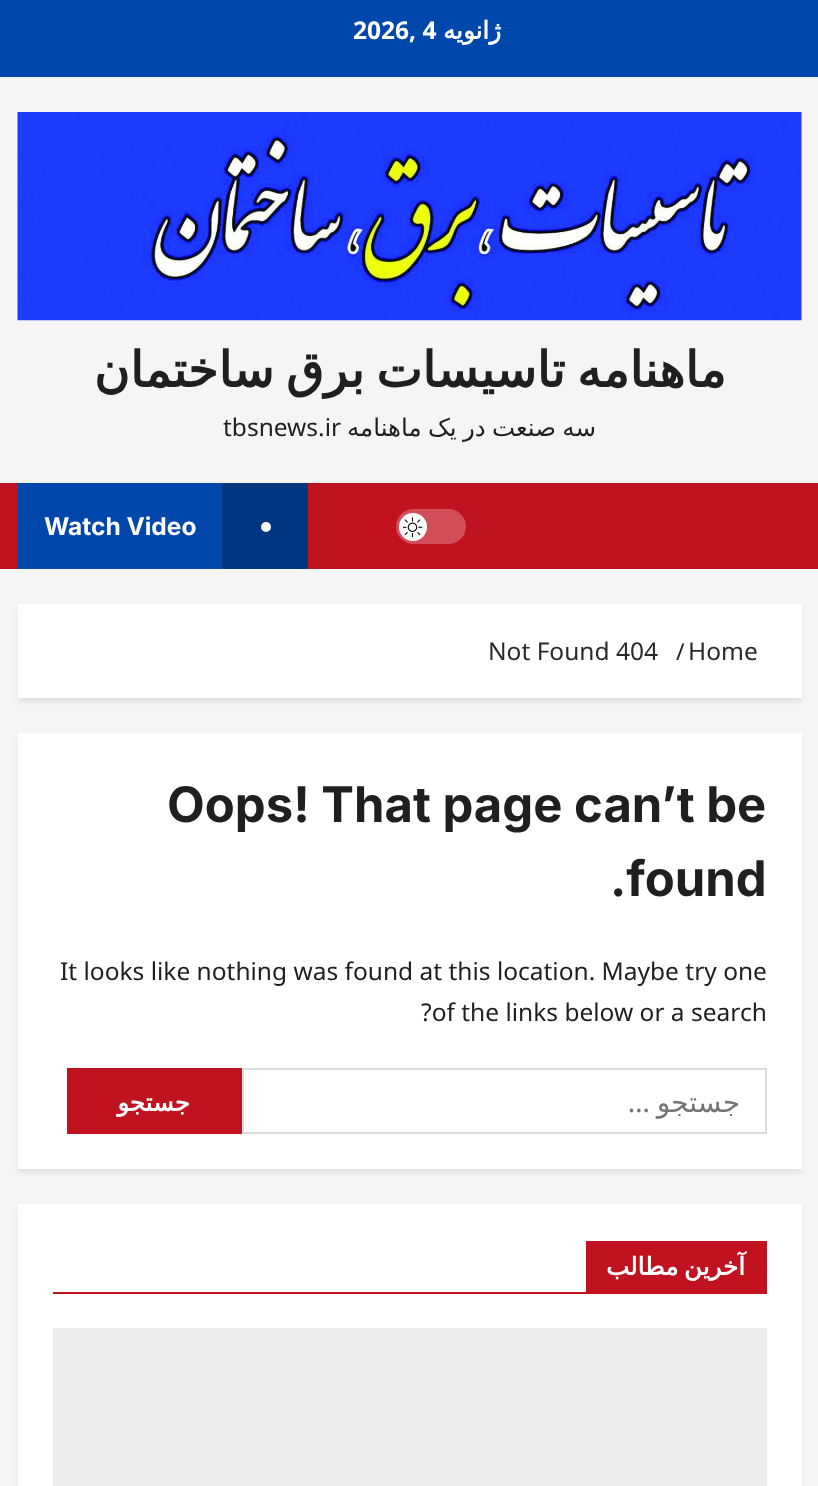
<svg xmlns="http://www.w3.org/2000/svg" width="818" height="1486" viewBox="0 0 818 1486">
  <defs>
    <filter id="blur1" x="-50%" y="-200%" width="200%" height="500%"><feGaussianBlur stdDeviation="2"/></filter>
  </defs>
  <rect width="100%" height="100%" fill="#f5f5f5"/>
  <rect x="0" y="0" width="818" height="77" fill="#0047ab"/>
  <text x="353" y="39" font-family="Noto Sans" font-size="24.5" font-weight="bold" fill="#ffffff">2026, 4</text>
  <text x="501" y="39" font-family="DejaVu Sans" font-size="24.5" font-weight="bold" direction="rtl" fill="#ffffff">ژانویه</text>
  <image x="17" y="112" width="785" height="209" href="img1.png"/>
  <text x="726" y="387" word-spacing="-4" font-family="DejaVu Sans" font-size="49" font-weight="bold" direction="rtl" fill="#1f1f1f">ماهنامه تاسیسات برق ساختمان</text>
  <text x="223" y="436" font-family="Noto Sans" font-size="24.5" fill="#1f1f1f">tbsnews.ir</text>
  <text x="596" y="436" word-spacing="-1.5" font-family="DejaVu Sans" font-size="24.5" direction="rtl" fill="#1f1f1f">سه صنعت در یک ماهنامه</text>
  <rect x="0" y="483" width="818" height="86" fill="#c1121f"/>
  <rect x="18" y="483" width="204" height="86" fill="#0047ab"/>
  <text x="44" y="535" font-family="Inter" font-size="24.5" font-weight="bold" fill="#ffffff">Watch Video</text>
  <rect x="222" y="483" width="86" height="86" fill="#003580"/>
  <circle cx="266" cy="527" r="5" fill="#ffffff"/>
  <rect x="396" y="509" width="70" height="35" rx="17.5" fill="#d14d57"/>
  <circle cx="413" cy="527" r="14" fill="#ffffff"/>
  <image x="403" y="517" width="20" height="20" href="img2.png"/>
  <rect x="18" y="607" width="784" height="95" fill="#000000" fill-opacity="0.08" filter="url(#blur1)"/>
  <rect x="18" y="604" width="784" height="94" fill="#ffffff"/>
  <text x="488" y="660" font-family="Noto Sans" font-size="24.5" fill="#2a2a2a">Not Found 404</text>
  <text x="676" y="660" font-family="Noto Sans" font-size="23" fill="#1f1f1f">/</text>
  <text x="688" y="660" font-family="Noto Sans" font-size="24.5" fill="#2a2a2a">Home</text>
  <rect x="18" y="737" width="784" height="436" fill="#000000" fill-opacity="0.08" filter="url(#blur1)"/>
  <rect x="18" y="733" width="784" height="436" fill="#ffffff"/>
  <text x="167" y="822" font-family="Inter" font-size="49" font-weight="bold" fill="#1f1f1f">Oops! That page can’t be</text>
  <text x="610" y="896" font-family="Inter" font-size="49" font-weight="bold" fill="#1f1f1f">.found</text>
  <text x="60" y="980" font-family="Noto Sans" font-size="24.5" fill="#1f1f1f">It looks like nothing was found at this location. Maybe try one</text>
  <text x="421" y="1021" font-family="Noto Sans" font-size="24.5" fill="#1f1f1f">?of the links below or a search</text>
  <rect x="67" y="1068" width="175" height="66" fill="#c1121f"/>
  <text x="190" y="1111" font-family="DejaVu Sans" font-size="24.5" font-weight="bold" direction="rtl" fill="#ffffff">جستجو</text>
  <rect x="243" y="1069" width="523" height="64" fill="none" stroke="#dcdcdc" stroke-width="2"/>
  <text x="650" y="1112" font-family="Noto Sans" font-size="28" direction="rtl" fill="#757575">…</text>
  <text x="740" y="1112" font-family="DejaVu Sans" font-size="28" direction="rtl" fill="#757575">جستجو</text>
  <rect x="18" y="1208" width="784" height="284" fill="#000000" fill-opacity="0.08" filter="url(#blur1)"/>
  <rect x="18" y="1204" width="784" height="282" fill="#ffffff"/>
  <rect x="53" y="1292" width="714" height="2" fill="#c1121f"/>
  <rect x="586" y="1241" width="181" height="51" fill="#c1121f"/>
  <text x="745" y="1275" word-spacing="-2" font-family="DejaVu Sans" font-size="24.5" font-weight="bold" direction="rtl" fill="#ffffff">آخرین مطالب</text>
  <rect x="53" y="1328" width="714" height="158" fill="#ececec"/>
</svg>
